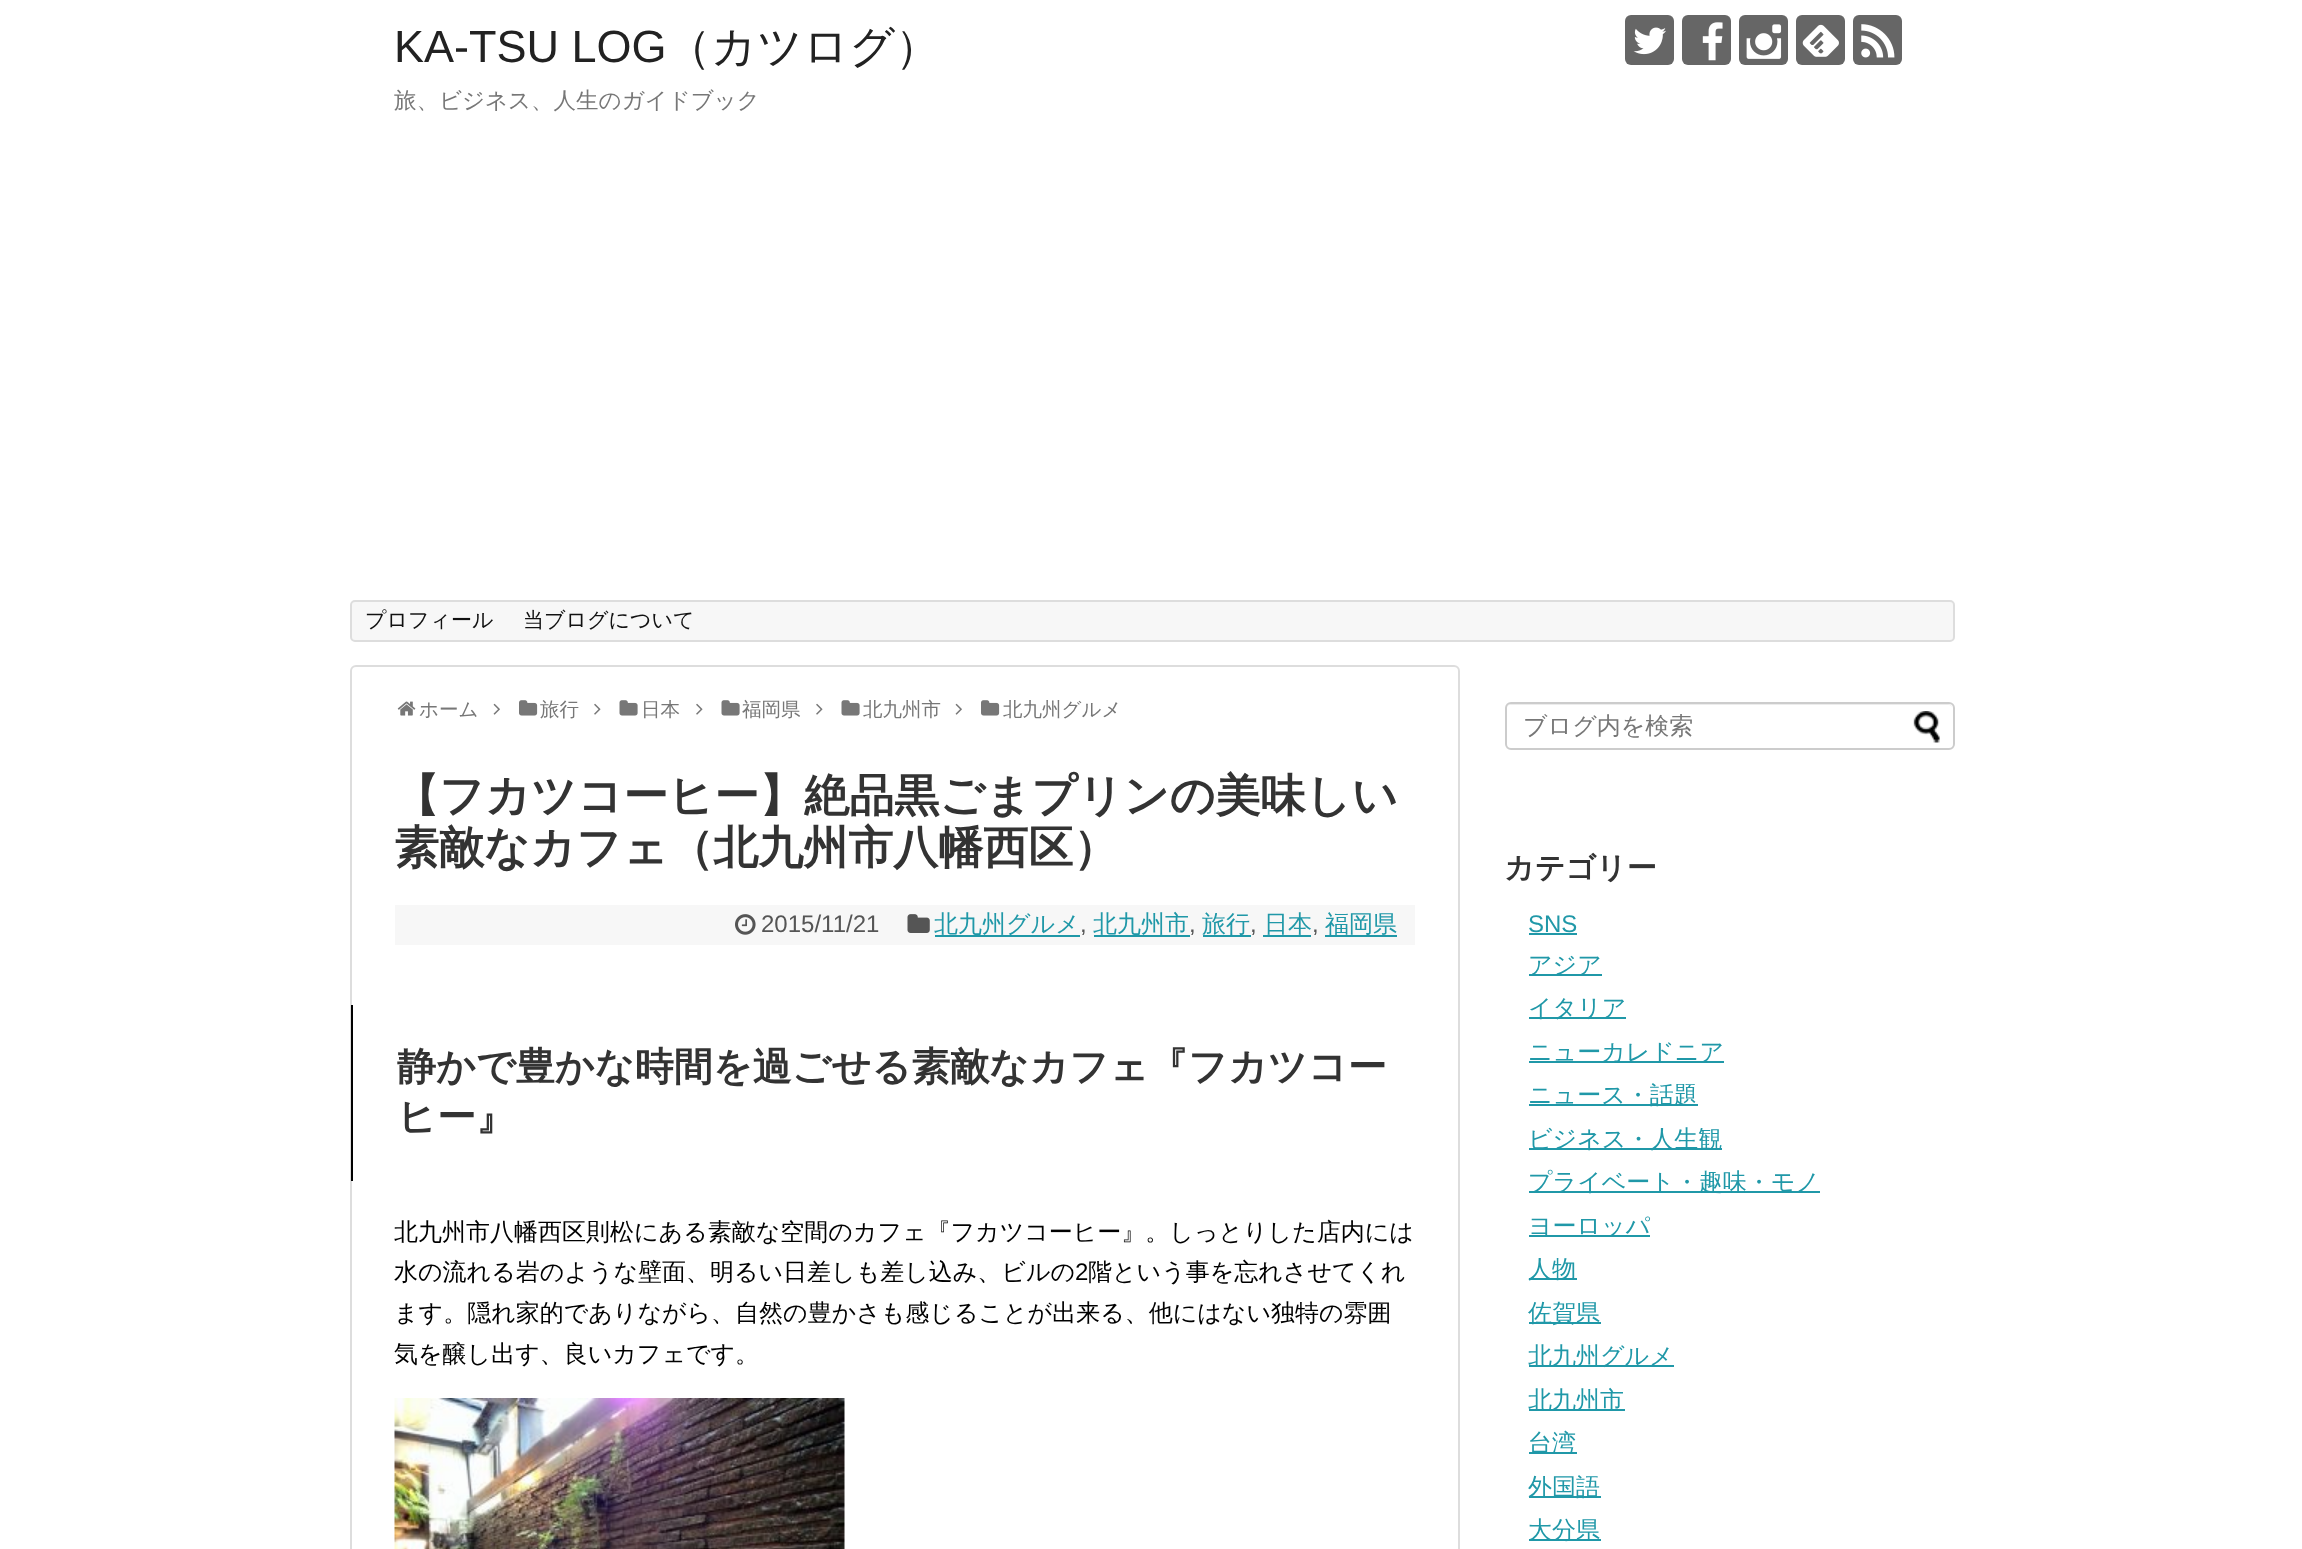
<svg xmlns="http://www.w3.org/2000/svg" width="2302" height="1549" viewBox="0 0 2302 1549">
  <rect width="100%" height="100%" fill="#ffffff"/>
  <text x="394" y="62" font-family="Liberation Sans" font-size="45" fill="#222222">KA-TSU LOG</text>
  <text x="666" y="62" font-family="WenQuanYi Zen Hei" font-size="45" font-weight="500" fill="#222222">（カツログ）</text>
  <text x="394" y="108" font-family="WenQuanYi Zen Hei" font-size="22.5" font-weight="500" fill="#777777">旅、ビジネス、人生のガイドブック</text>
  <rect x="1625" y="15" width="49" height="50" rx="6" fill="#666666"/>
  <image x="1633" y="27" width="33" height="28" href="img1.png"/>
  <rect x="1682" y="15" width="49" height="50" rx="6" fill="#666666"/>
  <image x="1702" y="22" width="21" height="39" href="img2.png"/>
  <rect x="1739" y="15" width="49" height="50" rx="6" fill="#666666"/>
  <image x="1746" y="24" width="36" height="35" href="img3.png"/>
  <rect x="1796" y="15" width="49" height="50" rx="6" fill="#666666"/>
  <image x="1802" y="24" width="37" height="33" href="img4.png"/>
  <rect x="1853" y="15" width="49" height="50" rx="6" fill="#666666"/>
  <image x="1861" y="24" width="34" height="34" href="img5.png"/>
  <rect x="351" y="601" width="1603" height="40" rx="4" fill="#f7f7f7" stroke="#dddddd" stroke-width="2"/>
  <text x="365" y="627" font-family="WenQuanYi Zen Hei" font-size="21" font-weight="500" fill="#111111">プロフィール</text>
  <text x="523" y="627" font-family="WenQuanYi Zen Hei" font-size="21" font-weight="500" fill="#111111">当ブログについて</text>
  <rect x="351" y="666" width="1108" height="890" rx="5" fill="none" stroke="#dddddd" stroke-width="2"/>
  <image x="397" y="701" width="19" height="15" href="img6.png"/>
  <text x="419" y="716" font-family="WenQuanYi Zen Hei" font-size="19.5" font-weight="500" fill="#777777">ホーム</text>
  <image x="493" y="703" width="7" height="12" href="img7.png"/>
  <image x="519" y="700" width="19" height="16" href="img8.png"/>
  <text x="540" y="716" font-family="WenQuanYi Zen Hei" font-size="19.5" font-weight="500" fill="#777777">旅行</text>
  <image x="594" y="703" width="7" height="12" href="img9.png"/>
  <image x="619" y="700" width="19" height="16" href="img10.png"/>
  <text x="641" y="716" font-family="WenQuanYi Zen Hei" font-size="19.5" font-weight="500" fill="#777777">日本</text>
  <image x="696" y="703" width="7" height="12" href="img9.png"/>
  <image x="721" y="700" width="19" height="16" href="img10.png"/>
  <text x="742" y="716" font-family="WenQuanYi Zen Hei" font-size="19.5" font-weight="500" fill="#777777">福岡県</text>
  <image x="816" y="703" width="7" height="12" href="img9.png"/>
  <image x="841" y="700" width="19" height="16" href="img10.png"/>
  <text x="863" y="716" font-family="WenQuanYi Zen Hei" font-size="19.5" font-weight="500" fill="#777777">北九州市</text>
  <image x="955" y="703" width="7" height="12" href="img7.png"/>
  <image x="981" y="700" width="19" height="16" href="img8.png"/>
  <text x="1003" y="716" font-family="WenQuanYi Zen Hei" font-size="19.5" font-weight="500" fill="#777777">北九州グルメ</text>
  <text x="394" y="811" font-family="WenQuanYi Zen Hei" font-size="45" font-weight="bold" fill="#333333">【フカツコーヒー】絶品黒ごまプリンの美味しい</text>
  <text x="394" y="863" font-family="WenQuanYi Zen Hei" font-size="45" font-weight="bold" fill="#333333">素敵なカフェ（北九州市八幡西区）</text>
  <rect x="395" y="905" width="1020" height="40" fill="#f7f7f7"/>
  <image x="735" y="914" width="21" height="21" href="img11.png"/>
  <text x="761" y="932" font-family="Liberation Sans" font-size="24" fill="#555555">2015/11/21</text>
  <image x="907" y="914" width="23" height="19" href="img12.png"/>
  <rect x="935" y="935" width="145" height="2" fill="#2098a8"/>
  <text x="934" y="932" font-family="WenQuanYi Zen Hei" font-size="24" font-weight="500" fill="#2098a8">北九州グルメ</text>
  <text x="1080" y="932" font-family="Liberation Sans" font-size="24" fill="#555555">,</text>
  <text x="1093" y="932" font-family="WenQuanYi Zen Hei" font-size="24" font-weight="500" fill="#2098a8">北九州市</text>
  <rect x="1094" y="935" width="96" height="2" fill="#2098a8"/>
  <text x="1189" y="932" font-family="Liberation Sans" font-size="24" fill="#555555">,</text>
  <rect x="1203" y="935" width="48" height="2" fill="#2098a8"/>
  <text x="1202" y="932" font-family="WenQuanYi Zen Hei" font-size="24" font-weight="500" fill="#2098a8">旅行</text>
  <text x="1250" y="932" font-family="Liberation Sans" font-size="24" fill="#555555">,</text>
  <text x="1264" y="932" font-family="WenQuanYi Zen Hei" font-size="24" font-weight="500" fill="#2098a8">日本</text>
  <rect x="1263" y="935" width="48" height="2" fill="#2098a8"/>
  <text x="1312" y="932" font-family="Liberation Sans" font-size="24" fill="#555555">,</text>
  <rect x="1325" y="935" width="72" height="2" fill="#2098a8"/>
  <text x="1325" y="932" font-family="WenQuanYi Zen Hei" font-size="24" font-weight="500" fill="#2098a8">福岡県</text>
  <rect x="351" y="1005" width="2" height="176" fill="#000000"/>
  <text x="397" y="1080" font-family="WenQuanYi Zen Hei" font-size="39" font-weight="bold" fill="#333333">静かで豊かな時間を過ごせる素敵なカフェ『フカツコー</text>
  <text x="397" y="1130" font-family="WenQuanYi Zen Hei" font-size="39" font-weight="bold" fill="#333333">ヒー』</text>
  <text x="394" y="1240" font-family="WenQuanYi Zen Hei" font-size="24" font-weight="500" fill="#000000">北九州市八幡西区則松にある素敵な空間のカフェ『フカツコーヒー』。しっとりした店内には</text>
  <text x="394" y="1280" font-family="WenQuanYi Zen Hei" font-size="24" font-weight="500" fill="#000000">水の流れる岩のような壁面、明るい日差しも差し込み、ビルの</text>
  <text x="1075" y="1280" font-family="Liberation Sans" font-size="24" fill="#000000">2</text>
  <text x="1088" y="1280" font-family="WenQuanYi Zen Hei" font-size="24" font-weight="500" fill="#000000">階という事を忘れさせてくれ</text>
  <text x="394" y="1321" font-family="WenQuanYi Zen Hei" font-size="24" font-weight="500" fill="#000000">ます。隠れ家的でありながら、自然の豊かさも感じることが出来る、他にはない独特の雰囲</text>
  <text x="394" y="1362" font-family="WenQuanYi Zen Hei" font-size="24" font-weight="500" fill="#000000">気を醸し出す、良いカフェです。</text>
  <image x="394" y="1398" width="451" height="151" href="img13.png"/>
  <path d="M1510 705H1948C1951 705 1953 707 1953 710C1953 707 1951 704 1948 704H1511C1508 704 1506 707 1506 710C1506 707 1508 705 1510 705Z" fill="#ececec"/>
  <rect x="1506" y="703" width="448" height="46" rx="5" fill="none" stroke="#cccccc" stroke-width="2"/>
  <text x="1523" y="734" font-family="WenQuanYi Zen Hei" font-size="24" font-weight="500" fill="#777777">ブログ内を検索</text>
  <image x="1913" y="711" width="27" height="32" href="img14.png"/>
  <text x="1504" y="878" font-family="WenQuanYi Zen Hei" font-size="30" font-weight="bold" fill="#333333">カテゴリー</text>
  <text x="1528" y="932" font-family="Liberation Sans" font-size="24" fill="#2098a8">SNS</text>
  <rect x="1529" y="933" width="48" height="2" fill="#2098a8"/>
  <rect x="1529" y="974" width="73" height="2" fill="#2098a8"/>
  <text x="1528" y="973" font-family="WenQuanYi Zen Hei" font-size="24" font-weight="500" fill="#2098a8">アジア</text>
  <rect x="1529" y="1017" width="97" height="2" fill="#2098a8"/>
  <text x="1528" y="1016" font-family="WenQuanYi Zen Hei" font-size="24" font-weight="500" fill="#2098a8">イタリア</text>
  <rect x="1529" y="1061" width="195" height="2" fill="#2098a8"/>
  <text x="1528" y="1060" font-family="WenQuanYi Zen Hei" font-size="24" font-weight="500" fill="#2098a8">ニューカレドニア</text>
  <rect x="1529" y="1104" width="169" height="2" fill="#2098a8"/>
  <text x="1528" y="1103" font-family="WenQuanYi Zen Hei" font-size="24" font-weight="500" fill="#2098a8">ニュース・話題</text>
  <rect x="1529" y="1148" width="193" height="2" fill="#2098a8"/>
  <text x="1528" y="1147" font-family="WenQuanYi Zen Hei" font-size="24" font-weight="500" fill="#2098a8">ビジネス・人生観</text>
  <rect x="1529" y="1191" width="291" height="2" fill="#2098a8"/>
  <text x="1528" y="1190" font-family="WenQuanYi Zen Hei" font-size="24" font-weight="500" fill="#2098a8">プライベート・趣味・モノ</text>
  <rect x="1529" y="1235" width="121" height="2" fill="#2098a8"/>
  <text x="1528" y="1234" font-family="WenQuanYi Zen Hei" font-size="24" font-weight="500" fill="#2098a8">ヨーロッパ</text>
  <rect x="1529" y="1278" width="48" height="2" fill="#2098a8"/>
  <text x="1528" y="1277" font-family="WenQuanYi Zen Hei" font-size="24" font-weight="500" fill="#2098a8">人物</text>
  <rect x="1529" y="1322" width="72" height="2" fill="#2098a8"/>
  <text x="1528" y="1321" font-family="WenQuanYi Zen Hei" font-size="24" font-weight="500" fill="#2098a8">佐賀県</text>
  <rect x="1529" y="1365" width="145" height="2" fill="#2098a8"/>
  <text x="1528" y="1364" font-family="WenQuanYi Zen Hei" font-size="24" font-weight="500" fill="#2098a8">北九州グルメ</text>
  <rect x="1529" y="1409" width="96" height="2" fill="#2098a8"/>
  <text x="1528" y="1408" font-family="WenQuanYi Zen Hei" font-size="24" font-weight="500" fill="#2098a8">北九州市</text>
  <rect x="1529" y="1452" width="48" height="2" fill="#2098a8"/>
  <text x="1528" y="1451" font-family="WenQuanYi Zen Hei" font-size="24" font-weight="500" fill="#2098a8">台湾</text>
  <rect x="1529" y="1496" width="72" height="2" fill="#2098a8"/>
  <text x="1528" y="1495" font-family="WenQuanYi Zen Hei" font-size="24" font-weight="500" fill="#2098a8">外国語</text>
  <rect x="1529" y="1539" width="72" height="2" fill="#2098a8"/>
  <text x="1528" y="1538" font-family="WenQuanYi Zen Hei" font-size="24" font-weight="500" fill="#2098a8">大分県</text>
</svg>
